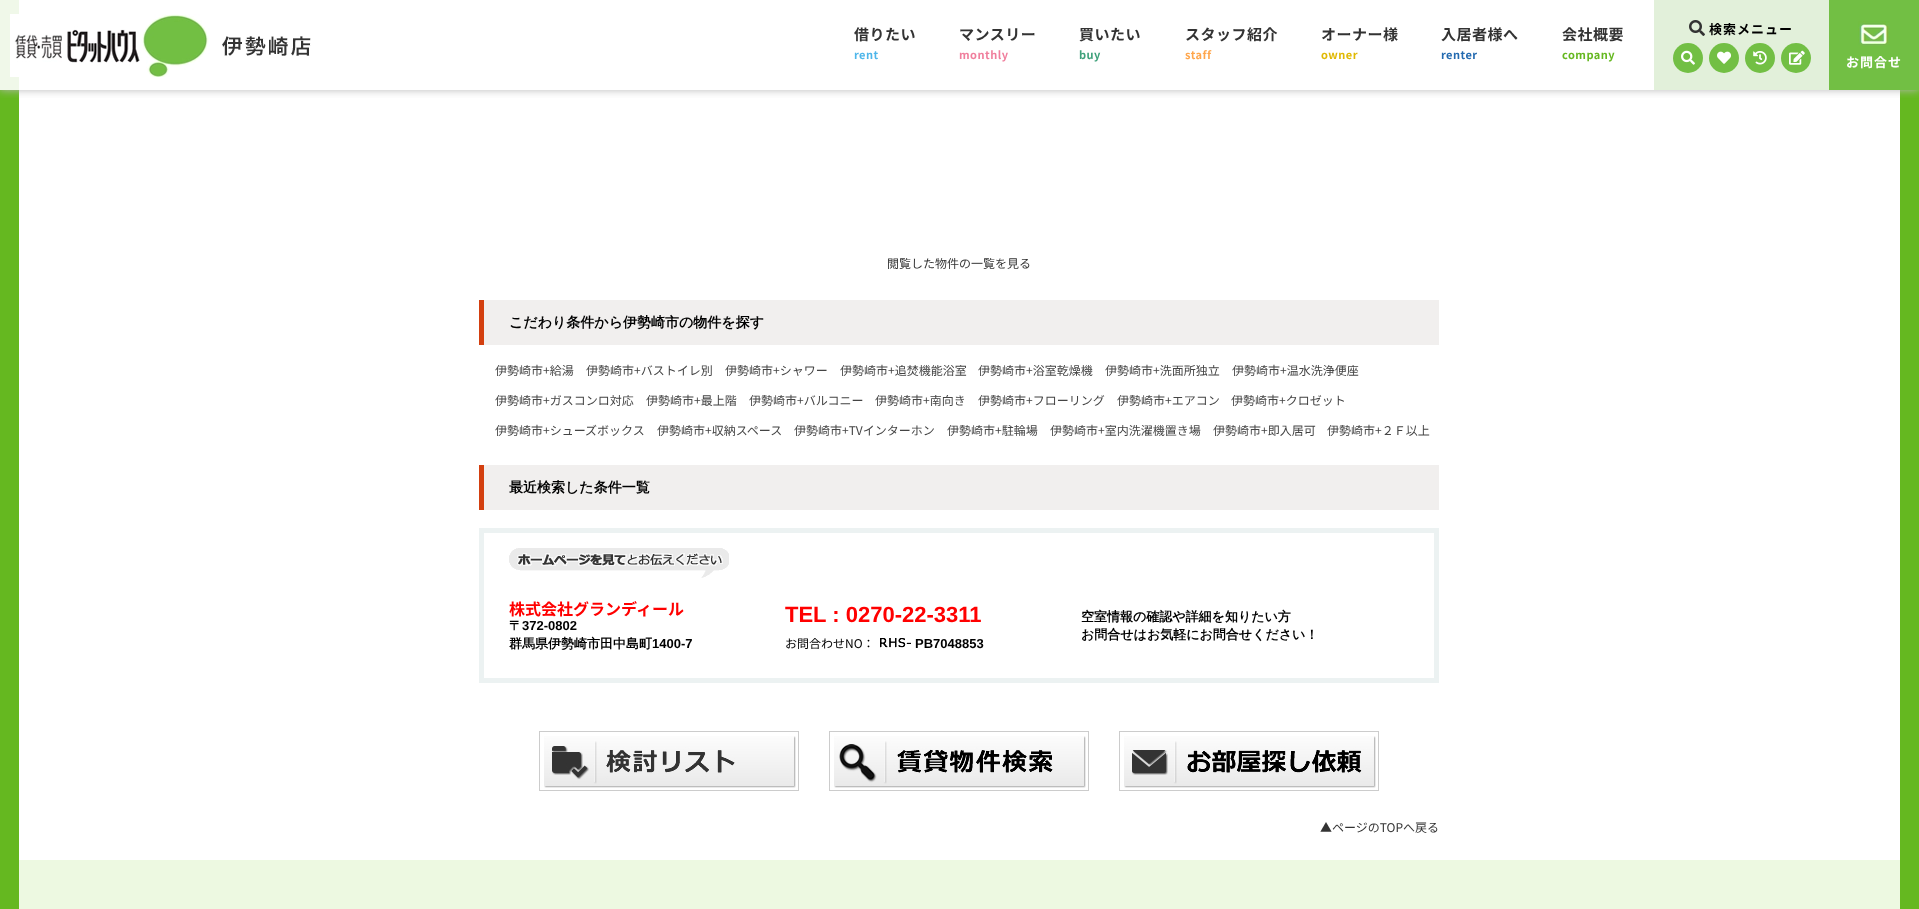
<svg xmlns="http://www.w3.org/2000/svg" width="1919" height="909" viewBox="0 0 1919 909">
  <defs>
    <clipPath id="clip1"><rect x="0" y="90" width="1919" height="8"/></clipPath>
    <filter id="blur1" x="-50%" y="-200%" width="200%" height="500%"><feGaussianBlur stdDeviation="4"/></filter>
  </defs>
  <rect width="100%" height="100%" fill="#65b820"/>
  <rect x="0" y="0" width="19" height="90" fill="#f0f8e9"/>
  <rect x="19" y="90" width="1881" height="770" fill="#ffffff"/>
  <rect x="19" y="0" width="1635" height="90" fill="#ffffff"/>
  <g clip-path="url(#clip1)">
    <rect x="0" y="0" width="1919" height="90" fill="#b9b9b9" filter="url(#blur1)"/>
  </g>
  <image x="10" y="14" width="301" height="63" href="img1.png"/>
  <text x="854" y="40" font-family="Noto Sans JP" font-size="15" font-weight="bold" letter-spacing="0.5" fill="#333333">借りたい</text>
  <text x="854" y="59" font-family="Noto Sans JP" font-size="11" font-weight="bold" letter-spacing="0.5" fill="#4eb6ea">rent</text>
  <text x="959" y="40" font-family="Noto Sans JP" font-size="15" font-weight="bold" letter-spacing="0.5" fill="#333333">マンスリー</text>
  <text x="959" y="59" font-family="Noto Sans JP" font-size="11" font-weight="bold" letter-spacing="0.5" fill="#f07f9d">monthly</text>
  <text x="1079" y="40" font-family="Noto Sans JP" font-size="15" font-weight="bold" letter-spacing="0.5" fill="#333333">買いたい</text>
  <text x="1079" y="59" font-family="Noto Sans JP" font-size="11" font-weight="bold" letter-spacing="0.5" fill="#3fa17b">buy</text>
  <text x="1185" y="40" font-family="Noto Sans JP" font-size="15" font-weight="bold" letter-spacing="0.5" fill="#333333">スタッフ紹介</text>
  <text x="1185" y="59" font-family="Noto Sans JP" font-size="11" font-weight="bold" letter-spacing="0.5" fill="#ffa64c">staff</text>
  <text x="1321" y="40" font-family="Noto Sans JP" font-size="15" font-weight="bold" letter-spacing="0.5" fill="#333333">オーナー様</text>
  <text x="1321" y="59" font-family="Noto Sans JP" font-size="11" font-weight="bold" letter-spacing="0.5" fill="#e0b903">owner</text>
  <text x="1441" y="40" font-family="Noto Sans JP" font-size="15" font-weight="bold" letter-spacing="0.5" fill="#333333">入居者様へ</text>
  <text x="1441" y="59" font-family="Noto Sans JP" font-size="11" font-weight="bold" letter-spacing="0.5" fill="#236ab0">renter</text>
  <text x="1562" y="40" font-family="Noto Sans JP" font-size="15" font-weight="bold" letter-spacing="0.5" fill="#333333">会社概要</text>
  <text x="1562" y="59" font-family="Noto Sans JP" font-size="11" font-weight="bold" letter-spacing="0.5" fill="#65b820">company</text>
  <rect x="1654" y="0" width="175" height="90" fill="#e2f0da"/>
  <image x="1689" y="20" width="16" height="16" href="img2.png"/>
  <text x="1709" y="34" font-family="Noto Sans JP" font-size="13" font-weight="bold" letter-spacing="1" fill="#000000">検索メニュー</text>
  <circle cx="1688" cy="58" r="15" fill="#72bf44"/>
  <image x="1681" y="50" width="14" height="15" href="img3.png"/>
  <circle cx="1724" cy="58" r="15" fill="#72bf44"/>
  <image x="1717" y="51" width="14" height="13" href="img4.png"/>
  <circle cx="1760" cy="58" r="15" fill="#72bf44"/>
  <image x="1753" y="51" width="14" height="14" href="img5.png"/>
  <circle cx="1796" cy="58" r="15" fill="#72bf44"/>
  <image x="1789" y="50" width="16" height="15" href="img6.png"/>
  <rect x="1829" y="0" width="90" height="90" fill="#72bf44"/>
  <image x="1858" y="21" width="32" height="25" href="img7.png"/>
  <text x="1846" y="67" font-family="Noto Sans JP" font-size="13" font-weight="bold" letter-spacing="1" fill="#ffffff">お問合せ</text>
  <text x="887" y="268" font-family="Noto Sans JP" font-size="12" fill="#333333">閲覧した物件の一覧を見る</text>
  <rect x="484" y="300" width="955" height="45" fill="#f1efee"/>
  <rect x="479" y="300" width="5" height="45" fill="#d33f0f"/>
  <text x="509" y="327" font-family="WenQuanYi Zen Hei" font-size="14" font-weight="bold" fill="#000000">こだわり条件から伊勢崎市の物件を探す</text>
  <text x="495" y="375" font-family="Noto Sans JP" font-size="12" fill="#444444">伊勢崎市+給湯</text>
  <text x="586" y="375" font-family="Noto Sans JP" font-size="12" fill="#444444">伊勢崎市+バストイレ別</text>
  <text x="725" y="375" font-family="Noto Sans JP" font-size="12" fill="#444444">伊勢崎市+シャワー</text>
  <text x="840" y="375" font-family="Noto Sans JP" font-size="12" fill="#444444">伊勢崎市+追焚機能浴室</text>
  <text x="978" y="375" font-family="Noto Sans JP" font-size="12" fill="#444444">伊勢崎市+浴室乾燥機</text>
  <text x="1105" y="375" font-family="Noto Sans JP" font-size="12" fill="#444444">伊勢崎市+洗面所独立</text>
  <text x="1232" y="375" font-family="Noto Sans JP" font-size="12" fill="#444444">伊勢崎市+温水洗浄便座</text>
  <text x="495" y="405" font-family="Noto Sans JP" font-size="12" fill="#444444">伊勢崎市+ガスコンロ対応</text>
  <text x="646" y="405" font-family="Noto Sans JP" font-size="12" fill="#444444">伊勢崎市+最上階</text>
  <text x="749" y="405" font-family="Noto Sans JP" font-size="12" fill="#444444">伊勢崎市+バルコニー</text>
  <text x="875" y="405" font-family="Noto Sans JP" font-size="12" fill="#444444">伊勢崎市+南向き</text>
  <text x="978" y="405" font-family="Noto Sans JP" font-size="12" fill="#444444">伊勢崎市+フローリング</text>
  <text x="1117" y="405" font-family="Noto Sans JP" font-size="12" fill="#444444">伊勢崎市+エアコン</text>
  <text x="1231" y="405" font-family="Noto Sans JP" font-size="12" fill="#444444">伊勢崎市+クロゼット</text>
  <text x="495" y="435" font-family="Noto Sans JP" font-size="12" fill="#444444">伊勢崎市+シューズボックス</text>
  <text x="657" y="435" font-family="Noto Sans JP" font-size="12" fill="#444444">伊勢崎市+収納スペース</text>
  <text x="794" y="435" font-family="Noto Sans JP" font-size="12" fill="#444444">伊勢崎市+TVインターホン</text>
  <text x="947" y="435" font-family="Noto Sans JP" font-size="12" fill="#444444">伊勢崎市+駐輪場</text>
  <text x="1050" y="435" font-family="Noto Sans JP" font-size="12" fill="#444444">伊勢崎市+室内洗濯機置き場</text>
  <text x="1213" y="435" font-family="Noto Sans JP" font-size="12" fill="#444444">伊勢崎市+即入居可</text>
  <text x="1327" y="435" font-family="Noto Sans JP" font-size="12" fill="#444444">伊勢崎市+２Ｆ以上</text>
  <rect x="484" y="465" width="955" height="45" fill="#f1efee"/>
  <rect x="479" y="465" width="5" height="45" fill="#d33f0f"/>
  <text x="509" y="492" font-family="WenQuanYi Zen Hei" font-size="14" font-weight="bold" fill="#000000">最近検索した条件一覧</text>
  <rect x="481.5" y="530.5" width="955" height="150" fill="none" stroke="#ecf2f2" stroke-width="5"/>
  <image x="509" y="548" width="220" height="30" href="img8.png"/>
  <text x="509" y="615" font-family="Noto Sans JP" font-size="16" font-weight="bold" fill="#ff0000">株式会社グランディール</text>
  <text x="509" y="630" font-family="WenQuanYi Zen Hei" font-size="13" font-weight="bold" fill="#000000">〒</text>
  <text x="522" y="630" font-family="Liberation Sans" font-size="13" font-weight="bold" fill="#000000">372-0802</text>
  <text x="509" y="648" font-family="WenQuanYi Zen Hei" font-size="13" font-weight="bold" fill="#000000">群馬県伊勢崎市田中島町</text>
  <text x="652" y="648" font-family="Liberation Sans" font-size="13" font-weight="bold" fill="#000000">1400-7</text>
  <text x="785" y="622" font-family="Liberation Sans" font-size="22" font-weight="bold" fill="#ff0000">TEL : 0270-22-3311</text>
  <text x="785" y="648" font-family="Noto Sans JP" font-size="12" fill="#000000">お問合わせNO：</text>
  <image x="880" y="638" width="31" height="10" href="img9.png"/>
  <text x="915" y="648" font-family="Liberation Sans" font-size="13" font-weight="bold" fill="#000000">PB7048853</text>
  <text x="1081" y="621" font-family="WenQuanYi Zen Hei" font-size="13" font-weight="bold" fill="#000000">空室情報の確認や詳細を知りたい方</text>
  <text x="1081" y="639" font-family="WenQuanYi Zen Hei" font-size="13" font-weight="bold" fill="#000000">お問合せはお気軽にお問合せください！</text>
  <image x="539" y="731" width="260" height="60" href="img10.png"/>
  <image x="829" y="731" width="260" height="60" href="img11.png"/>
  <image x="1119" y="731" width="260" height="60" href="img12.png"/>
  <text x="1320" y="832" font-family="Noto Sans JP" font-size="12" fill="#333333">▲ページのTOPへ戻る</text>
  <rect x="19" y="860" width="1881" height="49" fill="#edf9e1"/>
</svg>
